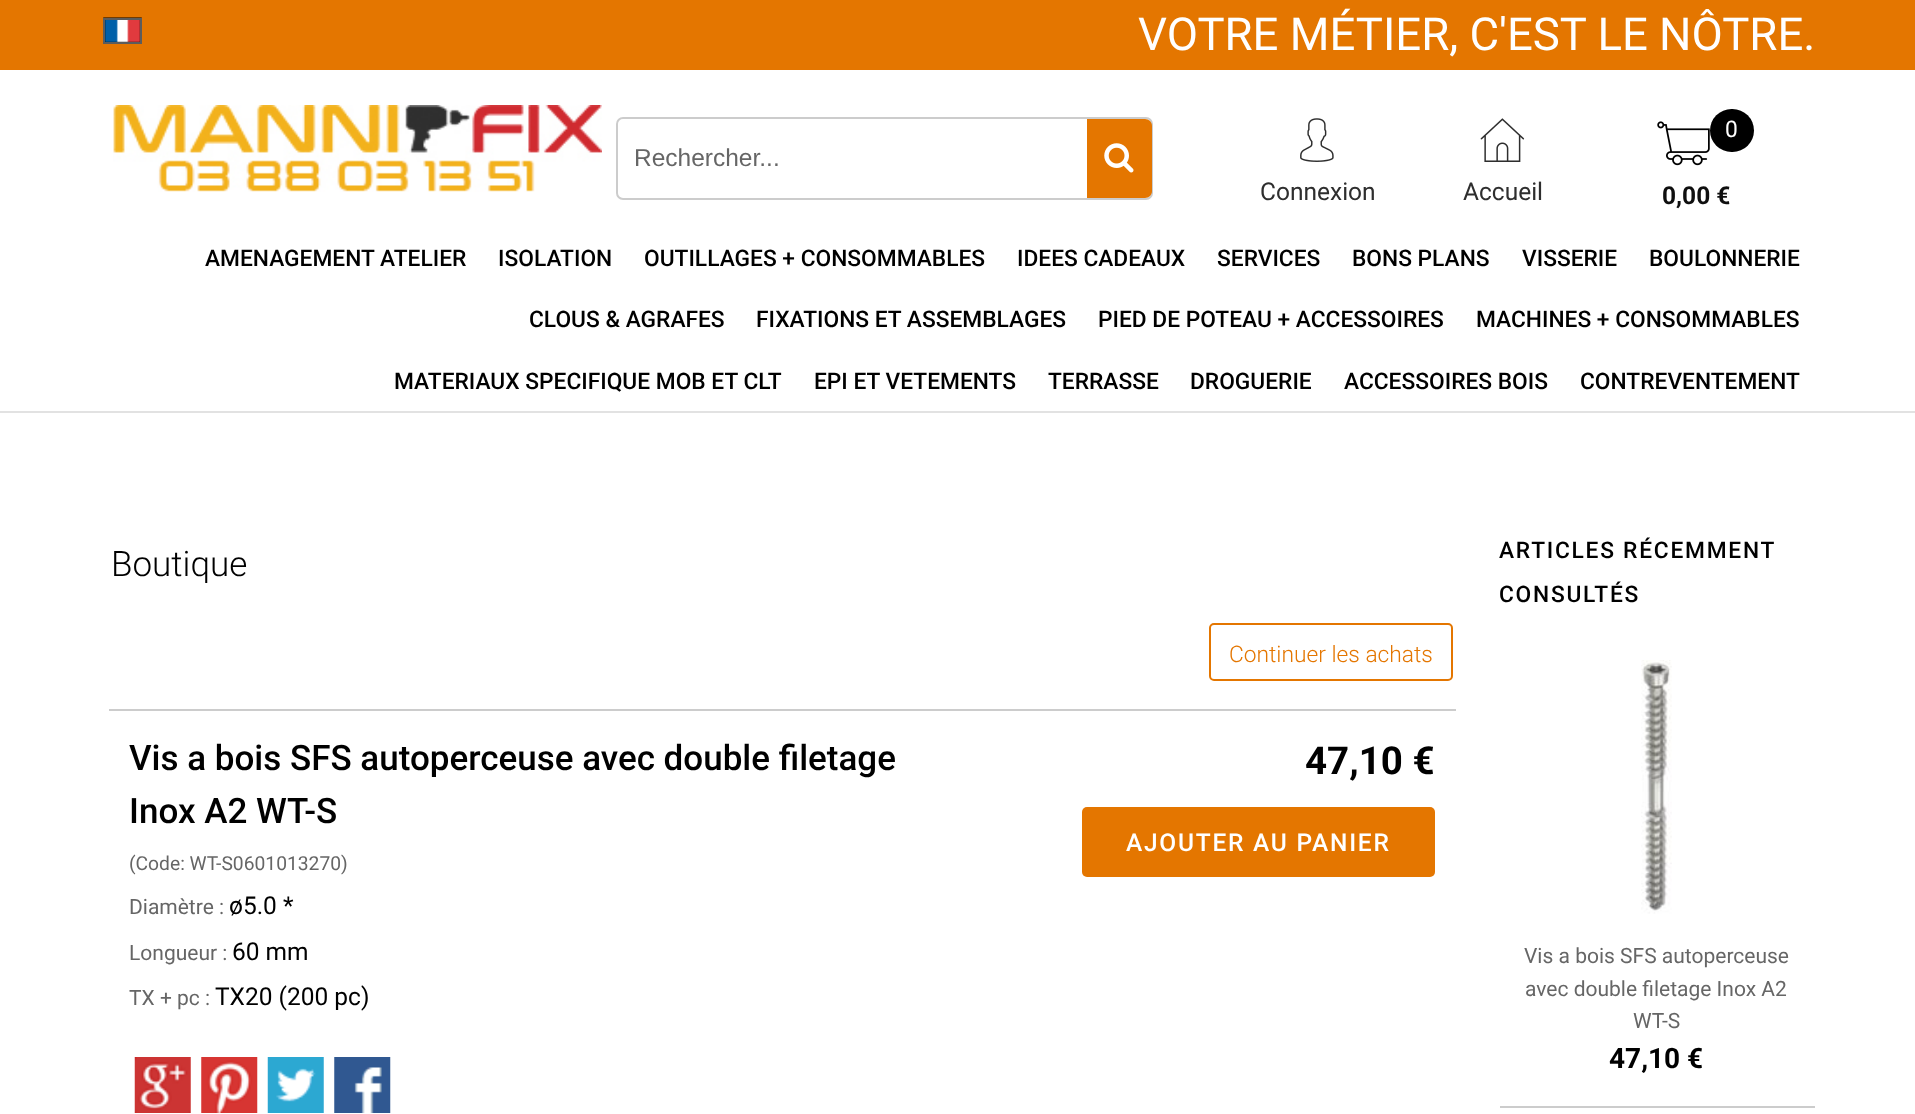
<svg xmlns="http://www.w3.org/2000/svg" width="1915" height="1114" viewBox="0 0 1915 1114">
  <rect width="100%" height="100%" fill="#ffffff"/>
  <rect x="0" y="0" width="1915" height="70" fill="#e47600"/>
  <rect x="0" y="411" width="1915" height="2" fill="#e2e2e2"/>
  <image x="103" y="17" width="39" height="25" href="img1.png"/>
  <rect x="104" y="19" width="37" height="24" fill="none" stroke="#5c5c5c" stroke-width="2"/>
  <text x="1138" y="50" font-family="Roboto" font-size="45.5" fill="#ffffff">VOTRE MÉTIER, C'EST LE NÔTRE.</text>
  <image x="113" y="105" width="489" height="87" href="img2.png"/>
  <rect x="617" y="118" width="535" height="81" rx="6" fill="none" stroke="#cccccc" stroke-width="2"/>
  <text x="634" y="166" font-family="Liberation Sans" font-size="24.5" fill="#666666">Rechercher...</text>
  <path d="M1087 119H1145C1149 119 1152 122 1152 126V191C1152 195 1149 198 1145 198H1087Z" fill="#e47600"/>
  <image x="1104" y="143" width="30" height="30" href="img3.png"/>
  <image x="1300" y="118" width="34" height="44" href="img4.png"/>
  <text x="1260" y="200" font-family="Roboto" font-size="24.5" fill="#2e2e2e">Connexion</text>
  <image x="1480" y="118" width="45" height="44" href="img5.png"/>
  <text x="1463" y="200" font-family="Roboto" font-size="24.5" fill="#2e2e2e">Accueil</text>
  <image x="1657" y="121" width="53" height="45" href="img6.png"/>
  <rect x="1710" y="109" width="44" height="43" rx="21.5" fill="#000000"/>
  <text x="1725" y="137" font-family="Roboto" font-size="22.75" fill="#ffffff">0</text>
  <text x="1662" y="204" font-family="Roboto" font-size="24.5" font-weight="bold" fill="#0f0f0f">0,00 €</text>
  <text x="205" y="266" font-family="Roboto" font-size="22.75" font-weight="500" fill="#000000">AMENAGEMENT ATELIER</text>
  <text x="498" y="266" font-family="Roboto" font-size="22.75" font-weight="500" fill="#000000">ISOLATION</text>
  <text x="644" y="266" font-family="Roboto" font-size="22.75" font-weight="500" fill="#000000">OUTILLAGES + CONSOMMABLES</text>
  <text x="1017" y="266" font-family="Roboto" font-size="22.75" font-weight="500" fill="#000000">IDEES CADEAUX</text>
  <text x="1217" y="266" font-family="Roboto" font-size="22.75" font-weight="500" fill="#000000">SERVICES</text>
  <text x="1352" y="266" font-family="Roboto" font-size="22.75" font-weight="500" fill="#000000">BONS PLANS</text>
  <text x="1522" y="266" font-family="Roboto" font-size="22.75" font-weight="500" fill="#000000">VISSERIE</text>
  <text x="1649" y="266" font-family="Roboto" font-size="22.75" font-weight="500" fill="#000000">BOULONNERIE</text>
  <text x="529" y="327" font-family="Roboto" font-size="22.75" font-weight="500" fill="#000000">CLOUS &amp; AGRAFES</text>
  <text x="756" y="327" font-family="Roboto" font-size="22.75" font-weight="500" fill="#000000">FIXATIONS ET ASSEMBLAGES</text>
  <text x="1098" y="327" font-family="Roboto" font-size="22.75" font-weight="500" fill="#000000">PIED DE POTEAU + ACCESSOIRES</text>
  <text x="1476" y="327" font-family="Roboto" font-size="22.75" font-weight="500" fill="#000000">MACHINES + CONSOMMABLES</text>
  <text x="394" y="389" font-family="Roboto" font-size="22.75" font-weight="500" fill="#000000">MATERIAUX SPECIFIQUE MOB ET CLT</text>
  <text x="814" y="389" font-family="Roboto" font-size="22.75" font-weight="500" fill="#000000">EPI ET VETEMENTS</text>
  <text x="1048" y="389" font-family="Roboto" font-size="22.75" font-weight="500" fill="#000000">TERRASSE</text>
  <text x="1190" y="389" font-family="Roboto" font-size="22.75" font-weight="500" fill="#000000">DROGUERIE</text>
  <text x="1344" y="389" font-family="Roboto" font-size="22.75" font-weight="500" fill="#000000">ACCESSOIRES BOIS</text>
  <text x="1580" y="389" font-family="Roboto" font-size="22.75" font-weight="500" fill="#000000">CONTREVENTEMENT</text>
  <text x="111" y="576" font-family="Roboto" font-size="35" font-weight="300" fill="#000000">Boutique</text>
  <rect x="1210" y="624" width="242" height="56" rx="4" fill="none" stroke="#e47600" stroke-width="2"/>
  <text x="1229" y="662" font-family="Roboto" font-size="22.75" font-weight="300" fill="#e47600">Continuer les achats</text>
  <rect x="109" y="709" width="1347" height="2" fill="#cccccc"/>
  <text x="129" y="770" font-family="Roboto" font-size="35" font-weight="500" fill="#000000">Vis a bois SFS autoperceuse avec double filetage</text>
  <text x="129" y="823" font-family="Roboto" font-size="35" font-weight="500" fill="#000000">Inox A2 WT-S</text>
  <text x="129" y="870" font-family="Roboto" font-size="19.25" fill="#666666">(Code: WT-S0601013270)</text>
  <text x="129" y="914" font-family="Roboto" font-size="21" fill="#666666">Diamètre :</text>
  <text x="229" y="914" font-family="Roboto" font-size="24.5" fill="#000000">ø5.0 *</text>
  <text x="129" y="960" font-family="Roboto" font-size="21" fill="#666666">Longueur :</text>
  <text x="232" y="960" font-family="Roboto" font-size="24.5" fill="#000000">60 mm</text>
  <text x="129" y="1005" font-family="Roboto" font-size="21" fill="#666666">TX + pc :</text>
  <text x="215" y="1005" font-family="Roboto" font-size="24.5" fill="#000000">TX20 (200 pc)</text>
  <image x="134" y="1057" width="57" height="56" href="img7.png"/>
  <image x="201" y="1057" width="57" height="56" href="img8.png"/>
  <image x="267" y="1057" width="57" height="56" href="img9.png"/>
  <image x="334" y="1057" width="57" height="56" href="img10.png"/>
  <text x="1305" y="774" font-family="Roboto" font-size="38.5" font-weight="bold" fill="#000000">47,10 €</text>
  <rect x="1082" y="807" width="353" height="70" rx="5" fill="#e47600"/>
  <text x="1126" y="851" font-family="Roboto" font-size="24.5" font-weight="500" letter-spacing="1.75" fill="#ffffff">AJOUTER AU PANIER</text>
  <text x="1499" y="558" font-family="Roboto" font-size="22.75" font-weight="500" letter-spacing="1.75" fill="#000000">ARTICLES RÉCEMMENT</text>
  <text x="1499" y="602" font-family="Roboto" font-size="22.75" font-weight="500" letter-spacing="1.75" fill="#000000">CONSULTÉS</text>
  <rect x="1500" y="1106" width="315" height="2" fill="#cccccc"/>
  <image x="1641" y="660" width="31" height="254" href="img11.png"/>
  <text x="1524" y="963" font-family="Roboto" font-size="21" fill="#666666">Vis a bois SFS autoperceuse</text>
  <text x="1525" y="996" font-family="Roboto" font-size="21" fill="#666666">avec double filetage Inox A2</text>
  <text x="1633" y="1028" font-family="Roboto" font-size="21" fill="#666666">WT-S</text>
  <text x="1609" y="1068" font-family="Roboto" font-size="28" font-weight="bold" fill="#000000">47,10 €</text>
</svg>
